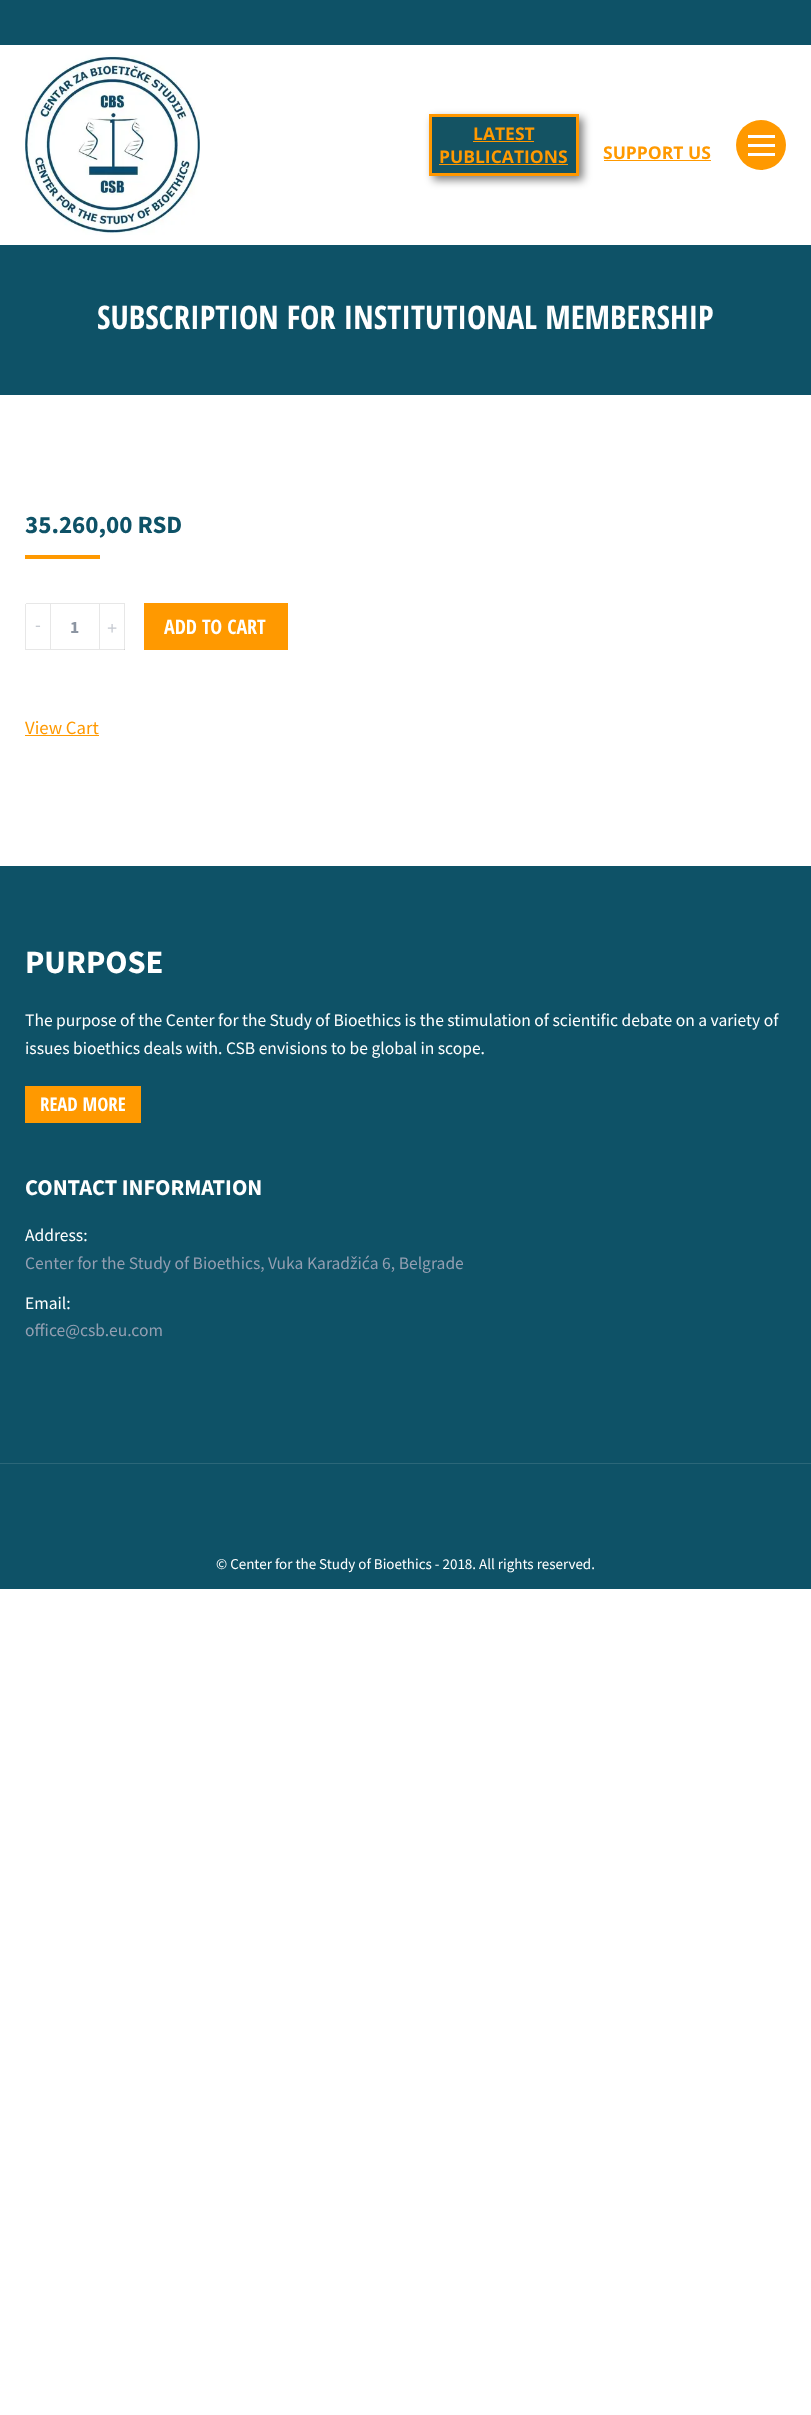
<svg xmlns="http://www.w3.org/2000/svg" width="811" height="2415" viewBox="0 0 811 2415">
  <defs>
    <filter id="blur1" x="-50%" y="-200%" width="200%" height="500%"><feGaussianBlur stdDeviation="4"/></filter>
  </defs>
  <rect width="100%" height="100%" fill="#ffffff"/>
  <rect x="100" y="649" width="25" height="1" fill="#e7e7e7"/>
  <rect x="0" y="0" width="811" height="45" fill="#0e5267"/>
  <image x="25" y="55" width="175" height="180" href="img1.png"/>
  <rect x="433" y="118" width="150" height="62" fill="#000000" fill-opacity="0.5" filter="url(#blur1)"/>
  <rect x="430.5" y="115.5" width="147" height="59" fill="#145363" stroke="#ff9700" stroke-width="3"/>
  <text x="473" y="140" font-family="Open Sans" font-size="17.5" font-weight="bold" fill="#ff9900">LATEST</text>
  <rect x="473" y="141" width="61" height="1" fill="#ff9700"/>
  <text x="439" y="163" font-family="Open Sans" font-size="17.5" font-weight="bold" fill="#ff9900">PUBLICATIONS</text>
  <rect x="439" y="164" width="129" height="1" fill="#ff9700"/>
  <text x="603" y="159" font-family="Open Sans" font-size="17.5" font-weight="bold" fill="#ff9900">SUPPORT US</text>
  <rect x="604" y="160" width="107" height="1" fill="#ff9900"/>
  <circle cx="761" cy="145" r="25" fill="#ff9900"/>
  <rect x="748" y="144" width="27" height="3" fill="#ffffff"/>
  <rect x="748" y="135" width="27" height="3" fill="#ffffff"/>
  <rect x="748" y="153" width="27" height="3" fill="#ffffff"/>
  <rect x="0" y="245" width="811" height="150" fill="#0e5267"/>
  <text x="97" y="329" font-family="Open Sans Condensed" font-size="32.5" font-weight="bold" fill="#ffffff">SUBSCRIPTION FOR INSTITUTIONAL MEMBERSHIP</text>
  <text x="25" y="533" font-family="Source Sans Pro" font-size="25" font-weight="bold" fill="#0e5267">35.260,00 RSD</text>
  <rect x="25" y="555" width="75" height="4" fill="#ff9900"/>
  <rect x="26" y="603" width="24" height="1" fill="#e7e7e7"/>
  <rect x="26" y="649" width="24" height="1" fill="#e7e7e7"/>
  <rect x="25" y="604" width="1" height="46" fill="#e7e7e7"/>
  <text x="35" y="631" font-family="Liberation Sans" font-size="17.5" fill="#c6cad1">-</text>
  <rect x="50.5" y="603.5" width="49" height="46" fill="none" stroke="#e7e7e7"/>
  <text x="70" y="633" font-family="Source Sans Pro" font-size="17.5" font-weight="bold" fill="#8c95a2">1</text>
  <rect x="100" y="603" width="25" height="1" fill="#e7e7e7"/>
  <rect x="124" y="604" width="1" height="46" fill="#e7e7e7"/>
  <rect x="124" y="649" width="1" height="1" fill="#d1d1d1"/>
  <text x="107" y="634" font-family="Liberation Sans" font-size="17.5" fill="#c6cad1">+</text>
  <rect x="144" y="603" width="144" height="47" fill="#ff9900"/>
  <text x="164" y="634" font-family="Open Sans Condensed" font-size="20" font-weight="bold" fill="#ffffff">ADD TO CART</text>
  <text x="25" y="734" font-family="Source Sans Pro" font-size="18.75" fill="#ff9900">View Cart</text>
  <rect x="25" y="735" width="74" height="1" fill="#ff9900"/>
  <rect x="0" y="866" width="811" height="723" fill="#0e5267"/>
  <text x="25" y="973" font-family="Source Sans Pro" font-size="32.5" font-weight="bold" fill="#ffffff">PURPOSE</text>
  <text x="25" y="1026" font-family="Source Sans Pro" font-size="17.5" fill="#ffffff">The purpose of the Center for the Study of Bioethics is the stimulation of scientific debate on a variety of</text>
  <text x="25" y="1054" font-family="Source Sans Pro" font-size="17.5" fill="#ffffff">issues bioethics deals with. CSB envisions to be global in scope.</text>
  <rect x="25" y="1086" width="116" height="37" fill="#ff9900"/>
  <text x="40" y="1111" font-family="Open Sans Condensed" font-size="18.75" font-weight="bold" fill="#ffffff">READ MORE</text>
  <text x="25" y="1195" font-family="Source Sans Pro" font-size="22.5" font-weight="bold" fill="#ffffff">CONTACT INFORMATION</text>
  <text x="25" y="1241" font-family="Source Sans Pro" font-size="17.5" fill="#ffffff">Address:</text>
  <text x="25" y="1269" font-family="Source Sans Pro" font-size="17.5" fill="#949fb2">Center for the Study of Bioethics, Vuka Karadžića 6, Belgrade</text>
  <text x="25" y="1309" font-family="Source Sans Pro" font-size="17.5" fill="#ffffff">Email:</text>
  <text x="25" y="1336" font-family="Source Sans Pro" font-size="17.5" fill="#949fb2">office@csb.eu.com</text>
  <rect x="0" y="1463" width="811" height="1" fill="#2b6779"/>
  <text x="216" y="1569" font-family="Source Sans Pro" font-size="15" fill="#ffffff">© Center for the Study of Bioethics - 2018. All rights reserved.</text>
</svg>
